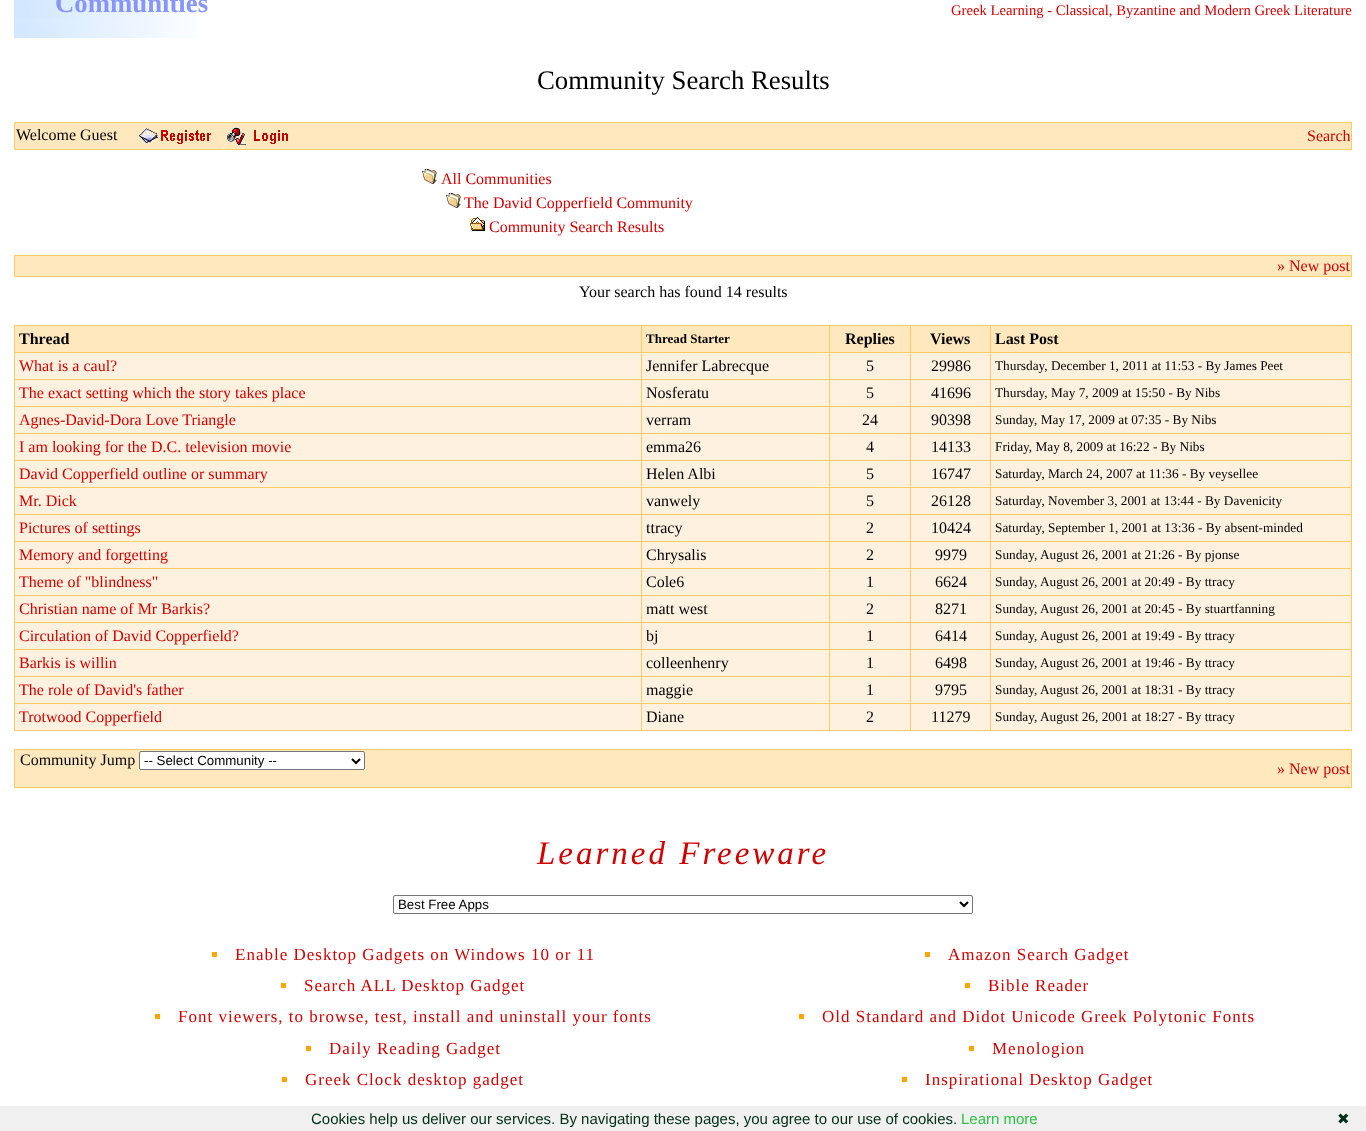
<svg xmlns="http://www.w3.org/2000/svg" width="1366" height="1131" viewBox="0 0 1366 1131">
  <rect width="100%" height="100%" fill="#ffffff"/>
  <image x="14" y="0" width="184" height="38" href="img1.png"/>
  <text x="55" y="12" font-family="Liberation Serif" font-size="26.75" font-weight="bold" fill="#8895ff">Communities</text>
  <text x="951" y="15" font-family="Liberation Serif" font-size="14.7" fill="#d00000">Greek Learning - Classical, Byzantine and Modern Greek Literature</text>
  <text x="537" y="89" font-family="Liberation Serif" font-size="26.75" fill="#000000">Community Search Results</text>
  <rect x="14" y="122" width="1338" height="28" fill="#fecc63"/>
  <rect x="15" y="123" width="1336" height="26" fill="#ffe8bd"/>
  <text x="16" y="140" font-family="Liberation Serif" font-size="16" fill="#000000">Welcome Guest</text>
  <image x="139" y="128" width="72" height="16" href="img2.png"/>
  <image x="223" y="127" width="65" height="21" href="img3.png"/>
  <text x="1307" y="141" font-family="Liberation Serif" font-size="16" fill="#d00000">Search</text>
  <image x="422" y="169" width="15" height="15" href="img4.png"/>
  <text x="441" y="184" font-family="Liberation Serif" font-size="16" fill="#d00000">All Communities</text>
  <image x="446" y="193" width="15" height="15" href="img4.png"/>
  <text x="464" y="208" font-family="Liberation Serif" font-size="16" fill="#d00000">The David Copperfield Community</text>
  <image x="470" y="217" width="15" height="14" href="img5.png"/>
  <text x="489" y="232" font-family="Liberation Serif" font-size="16" fill="#d00000">Community Search Results</text>
  <rect x="14" y="255" width="1338" height="22" fill="#fecc63"/>
  <rect x="15" y="256" width="1336" height="20" fill="#ffe8bd"/>
  <text x="1277" y="271" font-family="Liberation Serif" font-size="16" fill="#d00000">» New post</text>
  <text x="579" y="297" font-family="Liberation Serif" font-size="16" fill="#000000">Your search has found 14 results</text>
  <rect x="14" y="325" width="1338" height="406" fill="#fecc63"/>
  <rect x="15" y="326" width="626" height="26" fill="#ffe8bd"/>
  <text x="19" y="344" font-family="Liberation Serif" font-size="16" font-weight="bold" fill="#000000">Thread</text>
  <rect x="642" y="326" width="187" height="26" fill="#ffe8bd"/>
  <text x="646" y="343" font-family="Liberation Serif" font-size="13" font-weight="bold" fill="#000000">Thread Starter</text>
  <rect x="830" y="326" width="80" height="26" fill="#ffe8bd"/>
  <text x="845" y="344" font-family="Liberation Serif" font-size="16" font-weight="bold" fill="#000000">Replies</text>
  <rect x="911" y="326" width="79" height="26" fill="#ffe8bd"/>
  <text x="930" y="344" font-family="Liberation Serif" font-size="16" font-weight="bold" fill="#000000">Views</text>
  <rect x="991" y="326" width="360" height="26" fill="#ffe8bd"/>
  <text x="995" y="344" font-family="Liberation Serif" font-size="16" font-weight="bold" fill="#000000">Last Post</text>
  <rect x="15" y="353" width="626" height="26" fill="#fff1df"/>
  <text x="19" y="371" font-family="Liberation Serif" font-size="16" fill="#d00000">What is a caul?</text>
  <rect x="642" y="353" width="187" height="26" fill="#fff1df"/>
  <text x="646" y="371" font-family="Liberation Serif" font-size="16" fill="#000000">Jennifer Labrecque</text>
  <rect x="830" y="353" width="80" height="26" fill="#fff1df"/>
  <text x="866" y="371" font-family="Liberation Serif" font-size="16" fill="#000000">5</text>
  <rect x="911" y="353" width="79" height="26" fill="#fff1df"/>
  <text x="931" y="371" font-family="Liberation Serif" font-size="16" fill="#000000">29986</text>
  <rect x="991" y="353" width="360" height="26" fill="#fff1df"/>
  <text x="995" y="370" font-family="Liberation Serif" font-size="13.3" fill="#000000">Thursday, December 1, 2011 at 11:53 - By James Peet</text>
  <rect x="15" y="380" width="626" height="26" fill="#fff1df"/>
  <text x="19" y="398" font-family="Liberation Serif" font-size="16" fill="#d00000">The exact setting which the story takes place</text>
  <rect x="642" y="380" width="187" height="26" fill="#fff1df"/>
  <text x="646" y="398" font-family="Liberation Serif" font-size="16" fill="#000000">Nosferatu</text>
  <rect x="830" y="380" width="80" height="26" fill="#fff1df"/>
  <text x="866" y="398" font-family="Liberation Serif" font-size="16" fill="#000000">5</text>
  <rect x="911" y="380" width="79" height="26" fill="#fff1df"/>
  <text x="931" y="398" font-family="Liberation Serif" font-size="16" fill="#000000">41696</text>
  <rect x="991" y="380" width="360" height="26" fill="#fff1df"/>
  <text x="995" y="397" font-family="Liberation Serif" font-size="13.3" fill="#000000">Thursday, May 7, 2009 at 15:50 - By Nibs</text>
  <rect x="15" y="407" width="626" height="26" fill="#fff1df"/>
  <text x="19" y="425" font-family="Liberation Serif" font-size="16" fill="#d00000">Agnes-David-Dora Love Triangle</text>
  <rect x="642" y="407" width="187" height="26" fill="#fff1df"/>
  <text x="646" y="425" font-family="Liberation Serif" font-size="16" fill="#000000">verram</text>
  <rect x="830" y="407" width="80" height="26" fill="#fff1df"/>
  <text x="862" y="425" font-family="Liberation Serif" font-size="16" fill="#000000">24</text>
  <rect x="911" y="407" width="79" height="26" fill="#fff1df"/>
  <text x="931" y="425" font-family="Liberation Serif" font-size="16" fill="#000000">90398</text>
  <rect x="991" y="407" width="360" height="26" fill="#fff1df"/>
  <text x="995" y="424" font-family="Liberation Serif" font-size="13.3" fill="#000000">Sunday, May 17, 2009 at 07:35 - By Nibs</text>
  <rect x="15" y="434" width="626" height="26" fill="#fff1df"/>
  <text x="19" y="452" font-family="Liberation Serif" font-size="16" fill="#d00000">I am looking for the D.C. television movie</text>
  <rect x="642" y="434" width="187" height="26" fill="#fff1df"/>
  <text x="646" y="452" font-family="Liberation Serif" font-size="16" fill="#000000">emma26</text>
  <rect x="830" y="434" width="80" height="26" fill="#fff1df"/>
  <text x="866" y="452" font-family="Liberation Serif" font-size="16" fill="#000000">4</text>
  <rect x="911" y="434" width="79" height="26" fill="#fff1df"/>
  <text x="931" y="452" font-family="Liberation Serif" font-size="16" fill="#000000">14133</text>
  <rect x="991" y="434" width="360" height="26" fill="#fff1df"/>
  <text x="995" y="451" font-family="Liberation Serif" font-size="13.3" fill="#000000">Friday, May 8, 2009 at 16:22 - By Nibs</text>
  <rect x="15" y="461" width="626" height="26" fill="#fff1df"/>
  <text x="19" y="479" font-family="Liberation Serif" font-size="16" fill="#d00000">David Copperfield outline or summary</text>
  <rect x="642" y="461" width="187" height="26" fill="#fff1df"/>
  <text x="646" y="479" font-family="Liberation Serif" font-size="16" fill="#000000">Helen Albi</text>
  <rect x="830" y="461" width="80" height="26" fill="#fff1df"/>
  <text x="866" y="479" font-family="Liberation Serif" font-size="16" fill="#000000">5</text>
  <rect x="911" y="461" width="79" height="26" fill="#fff1df"/>
  <text x="931" y="479" font-family="Liberation Serif" font-size="16" fill="#000000">16747</text>
  <rect x="991" y="461" width="360" height="26" fill="#fff1df"/>
  <text x="995" y="478" font-family="Liberation Serif" font-size="13.3" fill="#000000">Saturday, March 24, 2007 at 11:36 - By veysellee</text>
  <rect x="15" y="488" width="626" height="26" fill="#fff1df"/>
  <text x="19" y="506" font-family="Liberation Serif" font-size="16" fill="#d00000">Mr. Dick</text>
  <rect x="642" y="488" width="187" height="26" fill="#fff1df"/>
  <text x="646" y="506" font-family="Liberation Serif" font-size="16" fill="#000000">vanwely</text>
  <rect x="830" y="488" width="80" height="26" fill="#fff1df"/>
  <text x="866" y="506" font-family="Liberation Serif" font-size="16" fill="#000000">5</text>
  <rect x="911" y="488" width="79" height="26" fill="#fff1df"/>
  <text x="931" y="506" font-family="Liberation Serif" font-size="16" fill="#000000">26128</text>
  <rect x="991" y="488" width="360" height="26" fill="#fff1df"/>
  <text x="995" y="505" font-family="Liberation Serif" font-size="13.3" fill="#000000">Saturday, November 3, 2001 at 13:44 - By Davenicity</text>
  <rect x="15" y="515" width="626" height="26" fill="#fff1df"/>
  <text x="19" y="533" font-family="Liberation Serif" font-size="16" fill="#d00000">Pictures of settings</text>
  <rect x="642" y="515" width="187" height="26" fill="#fff1df"/>
  <text x="646" y="533" font-family="Liberation Serif" font-size="16" fill="#000000">ttracy</text>
  <rect x="830" y="515" width="80" height="26" fill="#fff1df"/>
  <text x="866" y="533" font-family="Liberation Serif" font-size="16" fill="#000000">2</text>
  <rect x="911" y="515" width="79" height="26" fill="#fff1df"/>
  <text x="931" y="533" font-family="Liberation Serif" font-size="16" fill="#000000">10424</text>
  <rect x="991" y="515" width="360" height="26" fill="#fff1df"/>
  <text x="995" y="532" font-family="Liberation Serif" font-size="13.3" fill="#000000">Saturday, September 1, 2001 at 13:36 - By absent-minded</text>
  <rect x="15" y="542" width="626" height="26" fill="#fff1df"/>
  <text x="19" y="560" font-family="Liberation Serif" font-size="16" fill="#d00000">Memory and forgetting</text>
  <rect x="642" y="542" width="187" height="26" fill="#fff1df"/>
  <text x="646" y="560" font-family="Liberation Serif" font-size="16" fill="#000000">Chrysalis</text>
  <rect x="830" y="542" width="80" height="26" fill="#fff1df"/>
  <text x="866" y="560" font-family="Liberation Serif" font-size="16" fill="#000000">2</text>
  <rect x="911" y="542" width="79" height="26" fill="#fff1df"/>
  <text x="935" y="560" font-family="Liberation Serif" font-size="16" fill="#000000">9979</text>
  <rect x="991" y="542" width="360" height="26" fill="#fff1df"/>
  <text x="995" y="559" font-family="Liberation Serif" font-size="13.3" fill="#000000">Sunday, August 26, 2001 at 21:26 - By pjonse</text>
  <rect x="15" y="569" width="626" height="26" fill="#fff1df"/>
  <text x="19" y="587" font-family="Liberation Serif" font-size="16" fill="#d00000">Theme of "blindness"</text>
  <rect x="642" y="569" width="187" height="26" fill="#fff1df"/>
  <text x="646" y="587" font-family="Liberation Serif" font-size="16" fill="#000000">Cole6</text>
  <rect x="830" y="569" width="80" height="26" fill="#fff1df"/>
  <text x="866" y="587" font-family="Liberation Serif" font-size="16" fill="#000000">1</text>
  <rect x="911" y="569" width="79" height="26" fill="#fff1df"/>
  <text x="935" y="587" font-family="Liberation Serif" font-size="16" fill="#000000">6624</text>
  <rect x="991" y="569" width="360" height="26" fill="#fff1df"/>
  <text x="995" y="586" font-family="Liberation Serif" font-size="13.3" fill="#000000">Sunday, August 26, 2001 at 20:49 - By ttracy</text>
  <rect x="15" y="596" width="626" height="26" fill="#fff1df"/>
  <text x="19" y="614" font-family="Liberation Serif" font-size="16" fill="#d00000">Christian name of Mr Barkis?</text>
  <rect x="642" y="596" width="187" height="26" fill="#fff1df"/>
  <text x="646" y="614" font-family="Liberation Serif" font-size="16" fill="#000000">matt west</text>
  <rect x="830" y="596" width="80" height="26" fill="#fff1df"/>
  <text x="866" y="614" font-family="Liberation Serif" font-size="16" fill="#000000">2</text>
  <rect x="911" y="596" width="79" height="26" fill="#fff1df"/>
  <text x="935" y="614" font-family="Liberation Serif" font-size="16" fill="#000000">8271</text>
  <rect x="991" y="596" width="360" height="26" fill="#fff1df"/>
  <text x="995" y="613" font-family="Liberation Serif" font-size="13.3" fill="#000000">Sunday, August 26, 2001 at 20:45 - By stuartfanning</text>
  <rect x="15" y="623" width="626" height="26" fill="#fff1df"/>
  <text x="19" y="641" font-family="Liberation Serif" font-size="16" fill="#d00000">Circulation of David Copperfield?</text>
  <rect x="642" y="623" width="187" height="26" fill="#fff1df"/>
  <text x="646" y="641" font-family="Liberation Serif" font-size="16" fill="#000000">bj</text>
  <rect x="830" y="623" width="80" height="26" fill="#fff1df"/>
  <text x="866" y="641" font-family="Liberation Serif" font-size="16" fill="#000000">1</text>
  <rect x="911" y="623" width="79" height="26" fill="#fff1df"/>
  <text x="935" y="641" font-family="Liberation Serif" font-size="16" fill="#000000">6414</text>
  <rect x="991" y="623" width="360" height="26" fill="#fff1df"/>
  <text x="995" y="640" font-family="Liberation Serif" font-size="13.3" fill="#000000">Sunday, August 26, 2001 at 19:49 - By ttracy</text>
  <rect x="15" y="650" width="626" height="26" fill="#fff1df"/>
  <text x="19" y="668" font-family="Liberation Serif" font-size="16" fill="#d00000">Barkis is willin</text>
  <rect x="642" y="650" width="187" height="26" fill="#fff1df"/>
  <text x="646" y="668" font-family="Liberation Serif" font-size="16" fill="#000000">colleenhenry</text>
  <rect x="830" y="650" width="80" height="26" fill="#fff1df"/>
  <text x="866" y="668" font-family="Liberation Serif" font-size="16" fill="#000000">1</text>
  <rect x="911" y="650" width="79" height="26" fill="#fff1df"/>
  <text x="935" y="668" font-family="Liberation Serif" font-size="16" fill="#000000">6498</text>
  <rect x="991" y="650" width="360" height="26" fill="#fff1df"/>
  <text x="995" y="667" font-family="Liberation Serif" font-size="13.3" fill="#000000">Sunday, August 26, 2001 at 19:46 - By ttracy</text>
  <rect x="15" y="677" width="626" height="26" fill="#fff1df"/>
  <text x="19" y="695" font-family="Liberation Serif" font-size="16" fill="#d00000">The role of David's father</text>
  <rect x="642" y="677" width="187" height="26" fill="#fff1df"/>
  <text x="646" y="695" font-family="Liberation Serif" font-size="16" fill="#000000">maggie</text>
  <rect x="830" y="677" width="80" height="26" fill="#fff1df"/>
  <text x="866" y="695" font-family="Liberation Serif" font-size="16" fill="#000000">1</text>
  <rect x="911" y="677" width="79" height="26" fill="#fff1df"/>
  <text x="935" y="695" font-family="Liberation Serif" font-size="16" fill="#000000">9795</text>
  <rect x="991" y="677" width="360" height="26" fill="#fff1df"/>
  <text x="995" y="694" font-family="Liberation Serif" font-size="13.3" fill="#000000">Sunday, August 26, 2001 at 18:31 - By ttracy</text>
  <rect x="15" y="704" width="626" height="26" fill="#fff1df"/>
  <text x="19" y="722" font-family="Liberation Serif" font-size="16" fill="#d00000">Trotwood Copperfield</text>
  <rect x="642" y="704" width="187" height="26" fill="#fff1df"/>
  <text x="646" y="722" font-family="Liberation Serif" font-size="16" fill="#000000">Diane</text>
  <rect x="830" y="704" width="80" height="26" fill="#fff1df"/>
  <text x="866" y="722" font-family="Liberation Serif" font-size="16" fill="#000000">2</text>
  <rect x="911" y="704" width="79" height="26" fill="#fff1df"/>
  <text x="931" y="722" font-family="Liberation Serif" font-size="16" fill="#000000">11279</text>
  <rect x="991" y="704" width="360" height="26" fill="#fff1df"/>
  <text x="995" y="721" font-family="Liberation Serif" font-size="13.3" fill="#000000">Sunday, August 26, 2001 at 18:27 - By ttracy</text>
  <rect x="14" y="749" width="1338" height="39" fill="#fecc63"/>
  <rect x="15" y="750" width="1336" height="37" fill="#ffe8bd"/>
  <text x="20" y="765" font-family="Liberation Serif" font-size="16" fill="#000000">Community Jump</text>
  <rect x="139.5" y="751.5" width="225" height="18" rx="1.5" fill="#ffffff" stroke="#767676"/>
  <path d="M352 759L356 763L360 759" fill="none" stroke="#000000" stroke-width="2"/>
  <text x="144" y="765" font-family="Liberation Sans" font-size="13.3" fill="#000000">-- Select Community --</text>
  <text x="1277" y="774" font-family="Liberation Serif" font-size="16" fill="#d00000">» New post</text>
  <text x="537" y="864" font-family="Liberation Serif" font-size="33" font-style="italic" letter-spacing="3" fill="#d00000">Learned Freeware</text>
  <rect x="393.5" y="895.5" width="579" height="18" rx="1.5" fill="none" stroke="#767676"/>
  <path d="M960 902L964 906L968 902" fill="none" stroke="#000000" stroke-width="2"/>
  <text x="398" y="909" font-family="Liberation Sans" font-size="13.3" fill="#000000">Best Free Apps</text>
  <rect x="212" y="952" width="5" height="5" fill="#ffa500"/>
  <text x="235" y="960" font-family="Liberation Serif" font-size="17" letter-spacing="1" fill="#d00000">Enable Desktop Gadgets on Windows 10 or 11</text>
  <rect x="281" y="983" width="5" height="5" fill="#ffa500"/>
  <text x="304" y="991" font-family="Liberation Serif" font-size="17" letter-spacing="1" fill="#d00000">Search ALL Desktop Gadget</text>
  <rect x="155" y="1014" width="5" height="5" fill="#ffa500"/>
  <text x="178" y="1022" font-family="Liberation Serif" font-size="17" letter-spacing="1" fill="#d00000">Font viewers, to browse, test, install and uninstall your fonts</text>
  <rect x="306" y="1046" width="5" height="5" fill="#ffa500"/>
  <text x="329" y="1054" font-family="Liberation Serif" font-size="17" letter-spacing="1" fill="#d00000">Daily Reading Gadget</text>
  <rect x="282" y="1077" width="5" height="5" fill="#ffa500"/>
  <text x="305" y="1085" font-family="Liberation Serif" font-size="17" letter-spacing="1" fill="#d00000">Greek Clock desktop gadget</text>
  <rect x="925" y="952" width="5" height="5" fill="#ffa500"/>
  <text x="948" y="960" font-family="Liberation Serif" font-size="17" letter-spacing="1" fill="#d00000">Amazon Search Gadget</text>
  <rect x="965" y="983" width="5" height="5" fill="#ffa500"/>
  <text x="988" y="991" font-family="Liberation Serif" font-size="17" letter-spacing="1" fill="#d00000">Bible Reader</text>
  <rect x="799" y="1014" width="5" height="5" fill="#ffa500"/>
  <text x="822" y="1022" font-family="Liberation Serif" font-size="17" letter-spacing="1" fill="#d00000">Old Standard and Didot Unicode Greek Polytonic Fonts</text>
  <rect x="969" y="1046" width="5" height="5" fill="#ffa500"/>
  <text x="992" y="1054" font-family="Liberation Serif" font-size="17" letter-spacing="1" fill="#d00000">Menologion</text>
  <rect x="902" y="1077" width="5" height="5" fill="#ffa500"/>
  <text x="925" y="1085" font-family="Liberation Serif" font-size="17" letter-spacing="1" fill="#d00000">Inspirational Desktop Gadget</text>
  <rect x="0" y="1106" width="1366" height="25" fill="#f0f0f0"/>
  <text x="311" y="1124" font-family="Liberation Sans" font-size="15" fill="#002f17">Cookies help us deliver our services. By navigating these pages, you agree to our use of cookies.</text>
  <text x="961" y="1124" font-family="Liberation Sans" font-size="15" fill="#2dc244">Learn more</text>
  <text x="1337" y="1124" font-family="DejaVu Sans" font-size="15" fill="#002f17">✖</text>
</svg>
